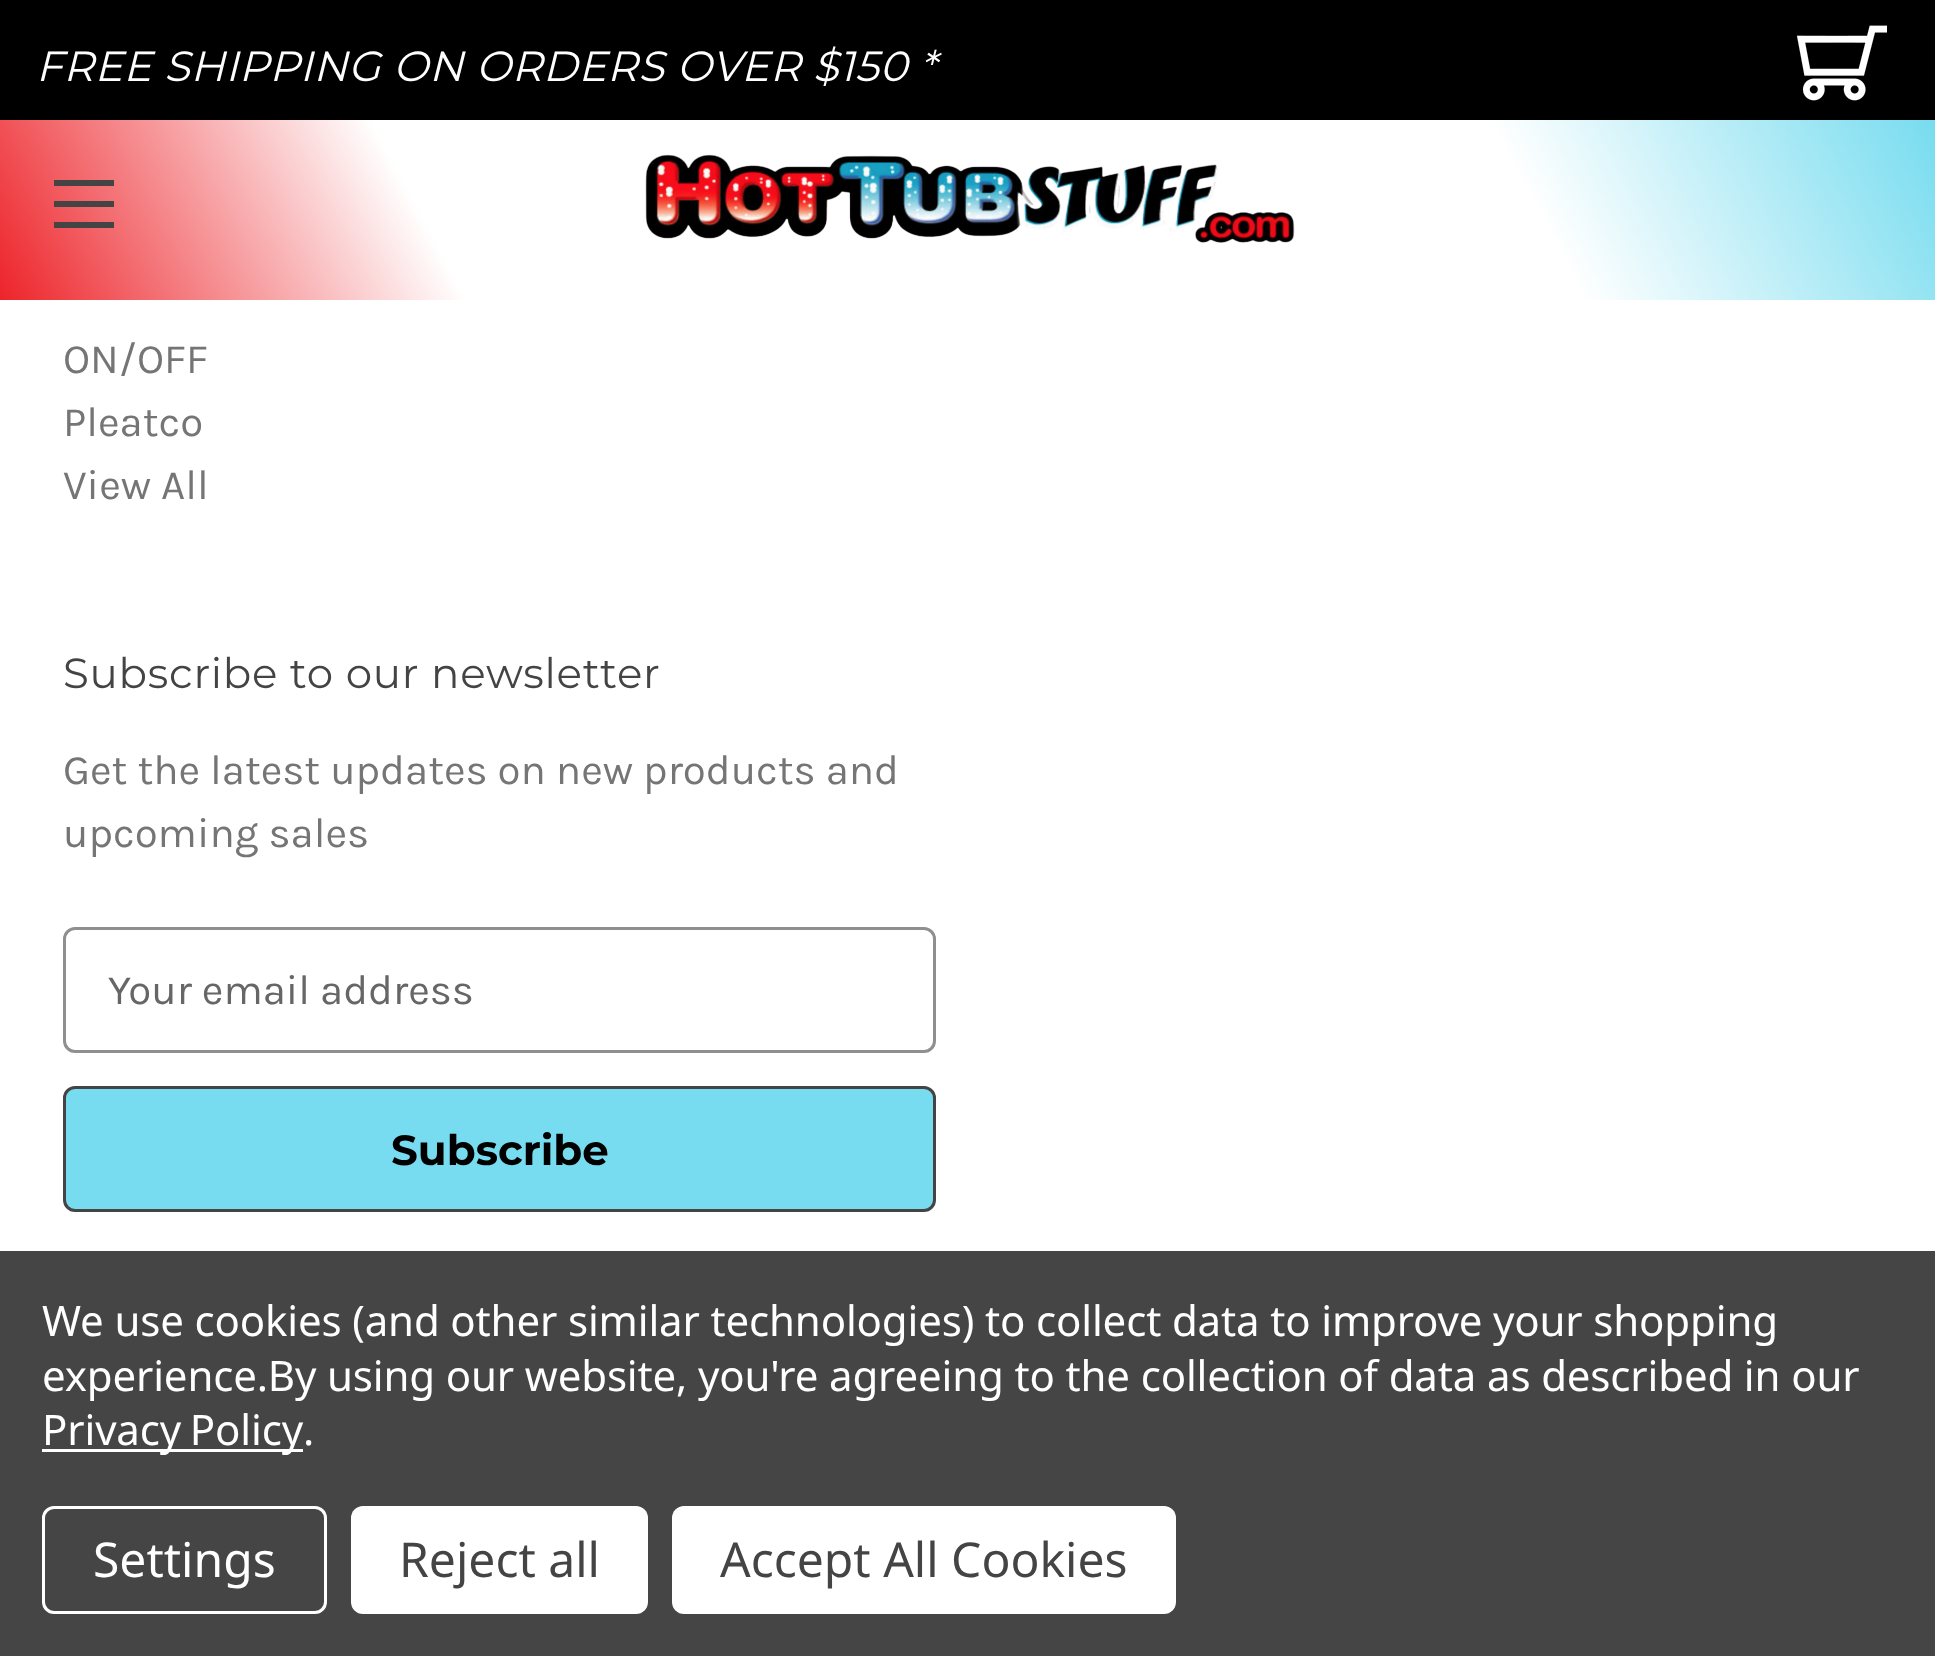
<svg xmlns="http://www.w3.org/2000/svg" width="1935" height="1656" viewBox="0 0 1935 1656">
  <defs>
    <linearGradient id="g1" gradientUnits="userSpaceOnUse" x1="176" y1="631" x2="1759" y2="-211"><stop offset="0" stop-color="#ed242a"/><stop offset="0.23" stop-color="#ffffff"/><stop offset="0.78" stop-color="#ffffff"/><stop offset="1" stop-color="#77dcef"/></linearGradient>
  </defs>
  <rect width="100%" height="100%" fill="#ffffff"/>
  <rect x="0" y="0" width="1935" height="120" fill="#000000"/>
  <text x="36" y="81" font-family="Montserrat" font-size="42" font-style="italic" letter-spacing="0.75" fill="#ffffff">FREE SHIPPING ON ORDERS OVER $150 *</text>
  <image x="1797" y="25" width="90" height="76" href="img1.png"/>
  <rect x="0" y="120" width="1935" height="180" fill="url(#g1)"/>
  <image x="645" y="154" width="650" height="89" href="img2.png"/>
  <rect x="54" y="201" width="60" height="6" fill="#444444"/>
  <rect x="54" y="180" width="60" height="6" fill="#444444"/>
  <rect x="54" y="222" width="60" height="6" fill="#444444"/>
  <text x="63" y="373" font-family="Karla" font-size="42" fill="#757575">ON/OFF</text>
  <text x="63" y="436" font-family="Karla" font-size="42" fill="#757575">Pleatco</text>
  <text x="63" y="499" font-family="Karla" font-size="42" fill="#757575">View All</text>
  <text x="63" y="688" font-family="Montserrat" font-size="42" letter-spacing="0.75" fill="#444444">Subscribe to our newsletter</text>
  <text x="63" y="784" font-family="Karla" font-size="42" fill="#757575">Get the latest updates on new products and</text>
  <text x="63" y="847" font-family="Karla" font-size="42" fill="#757575">upcoming sales</text>
  <rect x="64.5" y="928.5" width="870" height="123" rx="10.5" fill="none" stroke="#8f8f8f" stroke-width="3"/>
  <text x="108" y="1004" font-family="Karla" font-size="42" fill="#666666">Your email address</text>
  <rect x="64.5" y="1087.5" width="870" height="123" rx="10.5" fill="#77dcef" stroke="#444444" stroke-width="3"/>
  <text x="391" y="1165" font-family="Montserrat" font-size="42" font-weight="bold" fill="#000000">Subscribe</text>
  <rect x="0" y="1251" width="1935" height="405" fill="#454545"/>
  <text x="42" y="1336" font-family="Noto Sans" font-size="42" letter-spacing="-0.15" fill="#ffffff">We use cookies (and other similar technologies) to collect data to improve your shopping</text>
  <text x="42" y="1391" font-family="Noto Sans" font-size="42" letter-spacing="-0.15" fill="#ffffff">experience.By using our website, you're agreeing to the collection of data as described in our</text>
  <rect x="42" y="1449" width="261" height="3" fill="#ffffff"/>
  <text x="42" y="1445" word-spacing="-2" font-family="Noto Sans" font-size="42" letter-spacing="-0.15" fill="#ffffff">Privacy Policy</text>
  <text x="303" y="1445" font-family="Noto Sans" font-size="42" letter-spacing="-0.15" fill="#ffffff">.</text>
  <rect x="43.5" y="1507.5" width="282" height="105" rx="10.5" fill="none" stroke="#ffffff" stroke-width="3"/>
  <text x="93" y="1577" font-family="Noto Sans" font-size="48" fill="#ffffff">Settings</text>
  <rect x="351" y="1506" width="297" height="108" rx="12" fill="#ffffff"/>
  <text x="399" y="1577" font-family="Noto Sans" font-size="48" fill="#444444">Reject all</text>
  <rect x="672" y="1506" width="504" height="108" rx="12" fill="#ffffff"/>
  <text x="720" y="1577" font-family="Noto Sans" font-size="48" fill="#444444">Accept All Cookies</text>
</svg>
